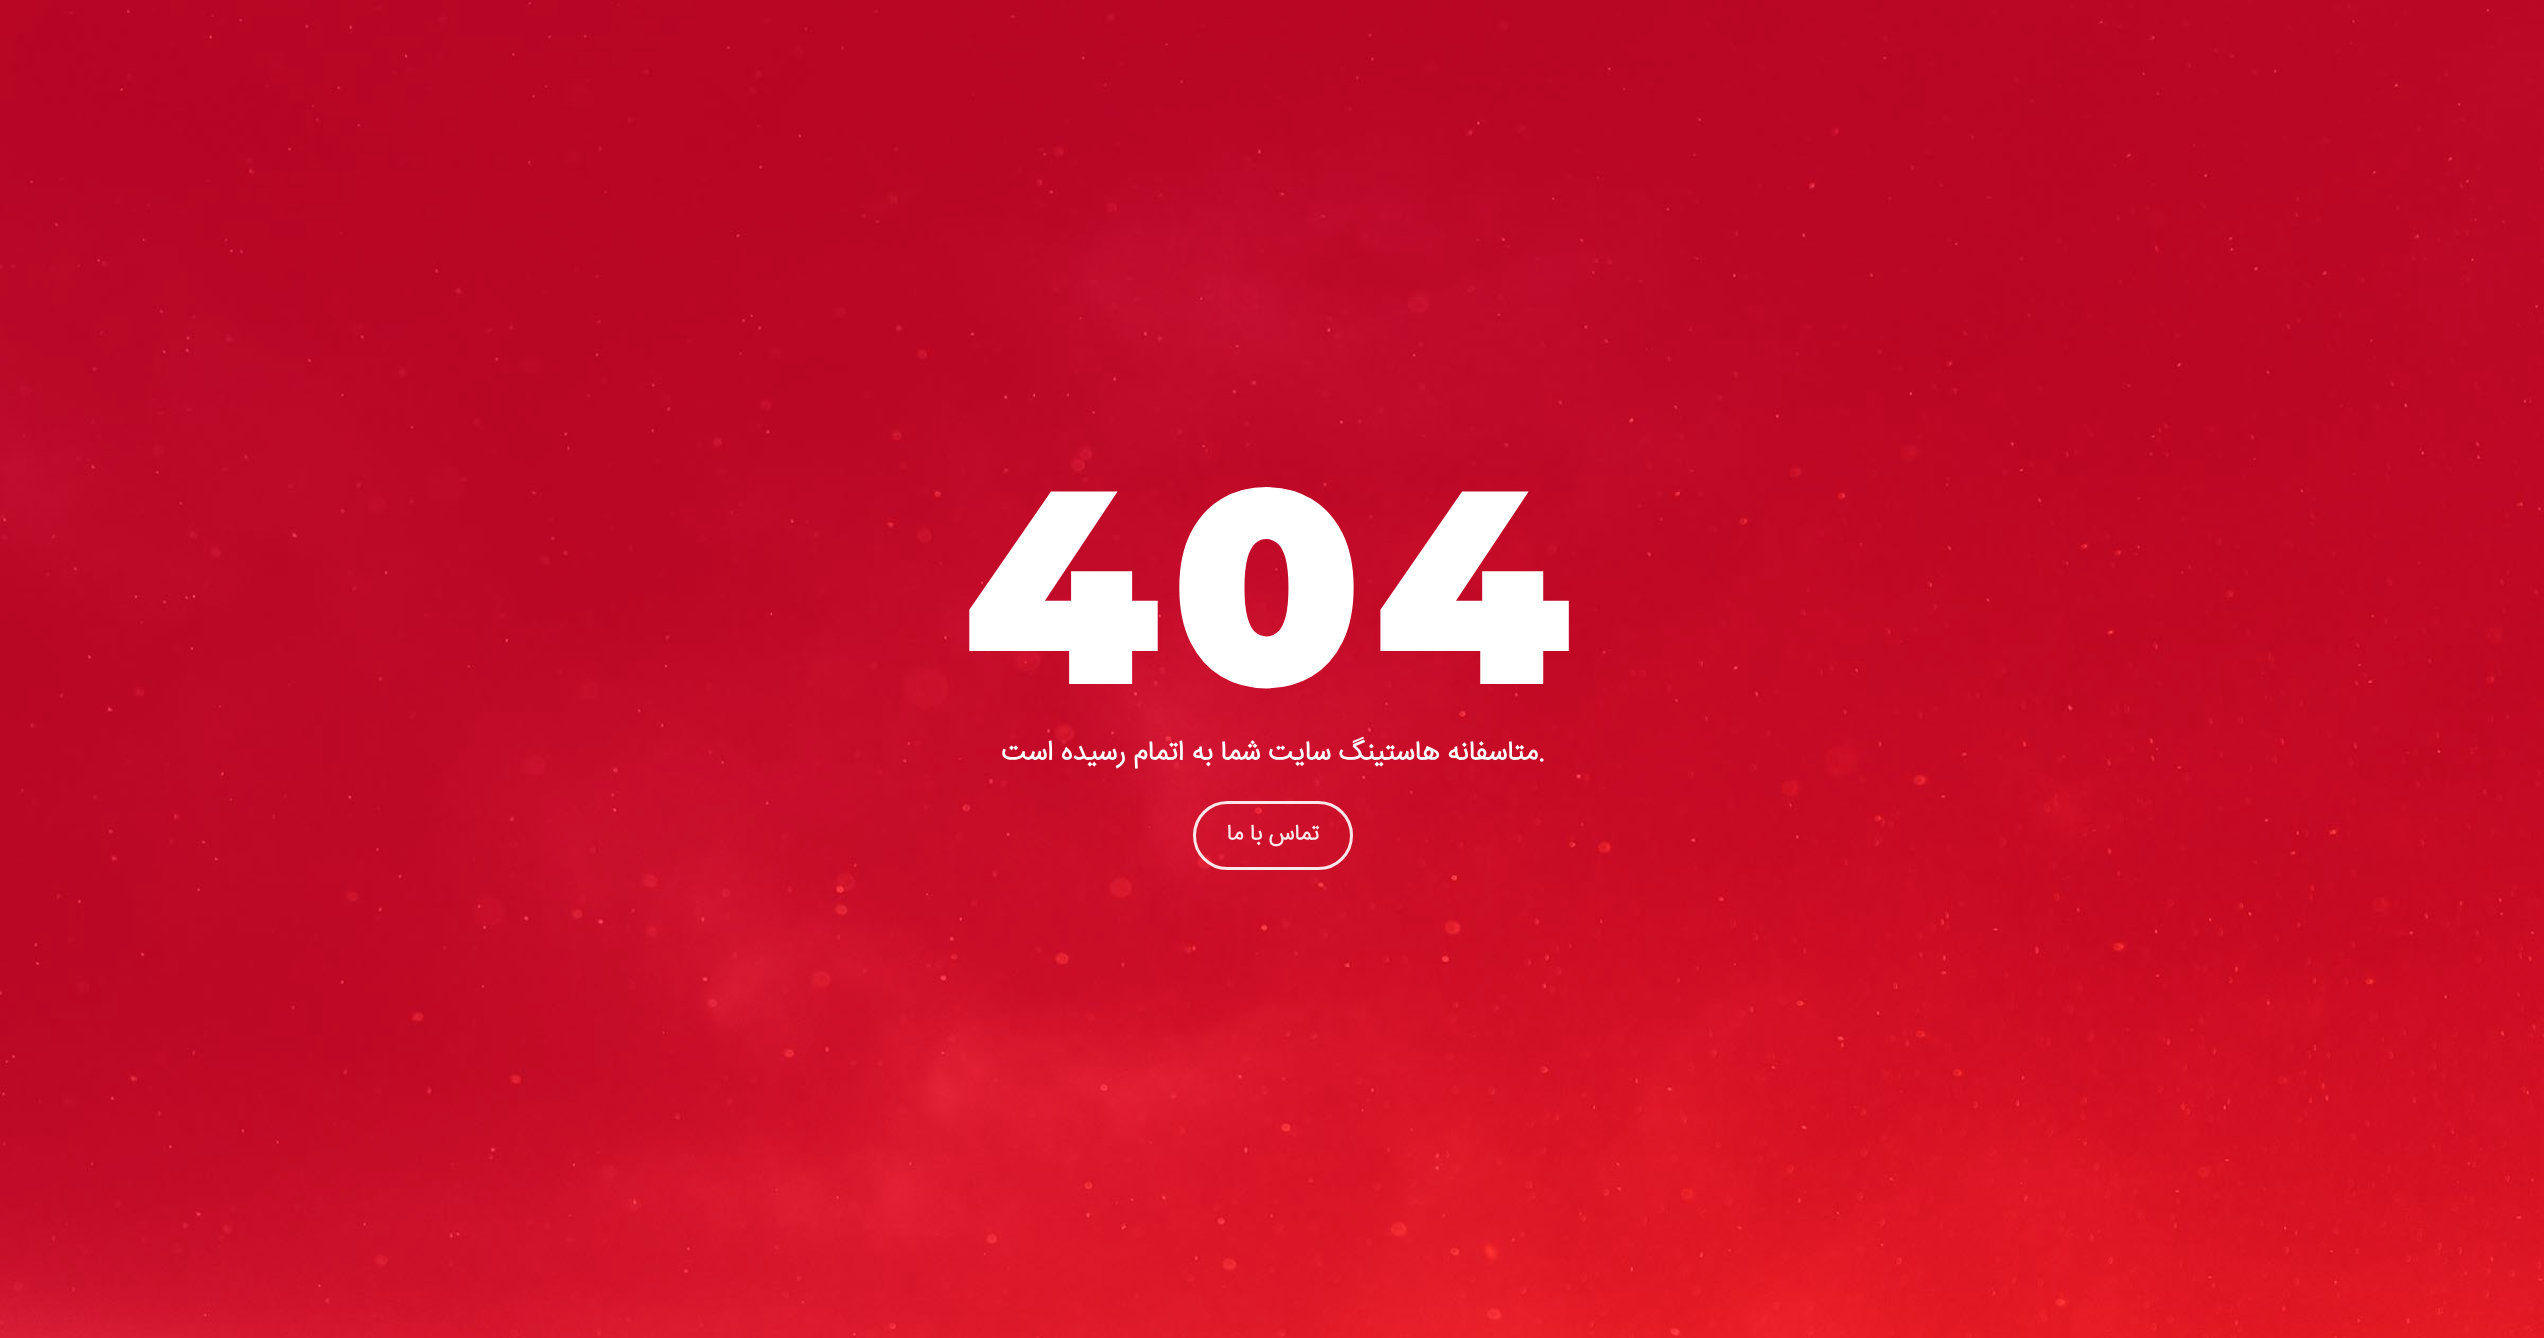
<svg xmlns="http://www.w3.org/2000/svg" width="2544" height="1338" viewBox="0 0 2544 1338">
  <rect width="100%" height="100%" fill="#ffffff"/>
  <image x="0" y="0" width="2544" height="1338" href="img1.png"/>
  <text x="963" y="684" font-family="Montserrat" font-size="275" font-weight="900" letter-spacing="12.5" fill="#ffffff">404</text>
  <text x="1538" y="760" font-family="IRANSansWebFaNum" font-size="27.5" font-weight="bold" fill="#ffffff">.</text>
  <text x="1538" y="760" font-family="IRANSansWebFaNum" font-size="27.5" font-weight="bold" direction="rtl" fill="#ffffff">متاسفانه هاستینگ سایت شما به اتمام رسیده است</text>
  <rect x="1194.5" y="802.5" width="157" height="66" rx="33" fill="none" stroke="#ffffff" stroke-opacity="0.9" stroke-width="3"/>
  <text x="1319" y="840" font-family="IRANSansWebFaNum" font-size="22.5" font-weight="bold" direction="rtl" fill="#fae7ea">تماس با ما</text>
</svg>
